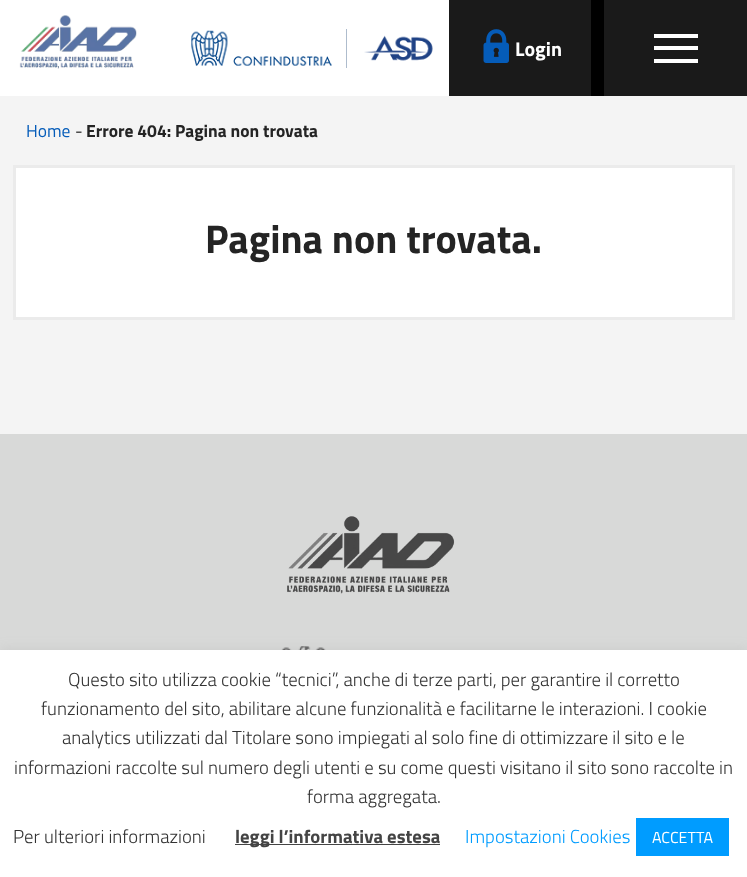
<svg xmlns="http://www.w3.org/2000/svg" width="747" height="877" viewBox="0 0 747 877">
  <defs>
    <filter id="blur1" x="-50%" y="-200%" width="200%" height="500%"><feGaussianBlur stdDeviation="6"/></filter>
  </defs>
  <rect width="100%" height="100%" fill="#f4f4f4"/>
  <rect x="0" y="0" width="449" height="96" fill="#ffffff"/>
  <image x="19" y="15" width="118" height="54" href="img1.png"/>
  <image x="191" y="30" width="141" height="36" href="img2.png"/>
  <rect x="346" y="29" width="1" height="39" fill="#aebccd"/>
  <image x="364" y="35" width="69" height="26" href="img3.png"/>
  <rect x="591" y="0" width="13" height="96" fill="#000000"/>
  <rect x="449" y="0" width="142" height="96" fill="#1a1a1a"/>
  <image x="483" y="29" width="26" height="34" href="img4.png"/>
  <text x="515" y="56" font-family="Titillium Web" font-size="20" font-weight="bold" fill="#ffffff">Login</text>
  <rect x="604" y="0" width="143" height="96" fill="#1a1a1a"/>
  <rect x="654" y="59" width="44" height="4" fill="#ffffff"/>
  <rect x="654" y="34" width="44" height="4" fill="#ffffff"/>
  <rect x="654" y="46" width="44" height="4" fill="#ffffff"/>
  <text x="26" y="137" font-family="Titillium Web" font-size="17.5" fill="#055cb9">Home</text>
  <text x="75" y="137" font-family="Titillium Web" font-size="17.5" fill="#242424">-</text>
  <text x="86" y="137" font-family="Titillium Web" font-size="17.5" font-weight="bold" fill="#242424">Errore 404: Pagina non trovata</text>
  <rect x="14.5" y="166.5" width="719" height="152" fill="#ffffff" stroke="#ebebeb" stroke-width="3"/>
  <text x="205" y="253" font-family="Titillium Web" font-size="40" font-weight="bold" fill="#242424">Pagina non trovata.</text>
  <rect x="0" y="434" width="747" height="216" fill="#d8d9d8"/>
  <image x="287" y="516" width="168" height="78" href="img5.png"/>
  <image x="281" y="646" width="45" height="4" href="img6.png"/>
  <rect x="0" y="649" width="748" height="227" fill="#acabab" fill-opacity="0.3" filter="url(#blur1)"/>
  <rect x="0" y="650" width="747" height="227" fill="#ffffff"/>
  <text x="68" y="686" font-family="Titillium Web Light" font-size="18.75" font-weight="300" fill="#333333">Questo sito utilizza cookie “tecnici”, anche di terze parti, per garantire il corretto</text>
  <text x="41" y="715" font-family="Titillium Web Light" font-size="18.75" font-weight="300" fill="#333333">funzionamento del sito, abilitare alcune funzionalità e facilitarne le interazioni. I cookie</text>
  <text x="62" y="744" font-family="Titillium Web Light" font-size="18.75" font-weight="300" fill="#333333">analytics utilizzati dal Titolare sono impiegati al solo fine di ottimizzare il sito e le</text>
  <text x="14" y="774" font-family="Titillium Web Light" font-size="18.75" font-weight="300" fill="#333333">informazioni raccolte sul numero degli utenti e su come questi visitano il sito sono raccolte in</text>
  <text x="307" y="803" font-family="Titillium Web Light" font-size="18.75" font-weight="300" fill="#333333">forma aggregata.</text>
  <text x="13" y="843" font-family="Titillium Web Light" font-size="18.75" font-weight="300" fill="#333333">Per ulteriori informazioni</text>
  <rect x="235" y="844" width="205" height="1" fill="#444444"/>
  <text x="235" y="843" font-family="Titillium Web" font-size="18.75" font-weight="bold" fill="#444444">leggi l’informativa estesa</text>
  <text x="465" y="843" font-family="Titillium Web Light" font-size="18.75" font-weight="300" fill="#009cff">Impostazioni Cookies</text>
  <rect x="636" y="818" width="93" height="38" fill="#009cff"/>
  <text x="652" y="843" font-family="Titillium Web" font-size="16" fill="#ffffff">ACCETTA</text>
</svg>
